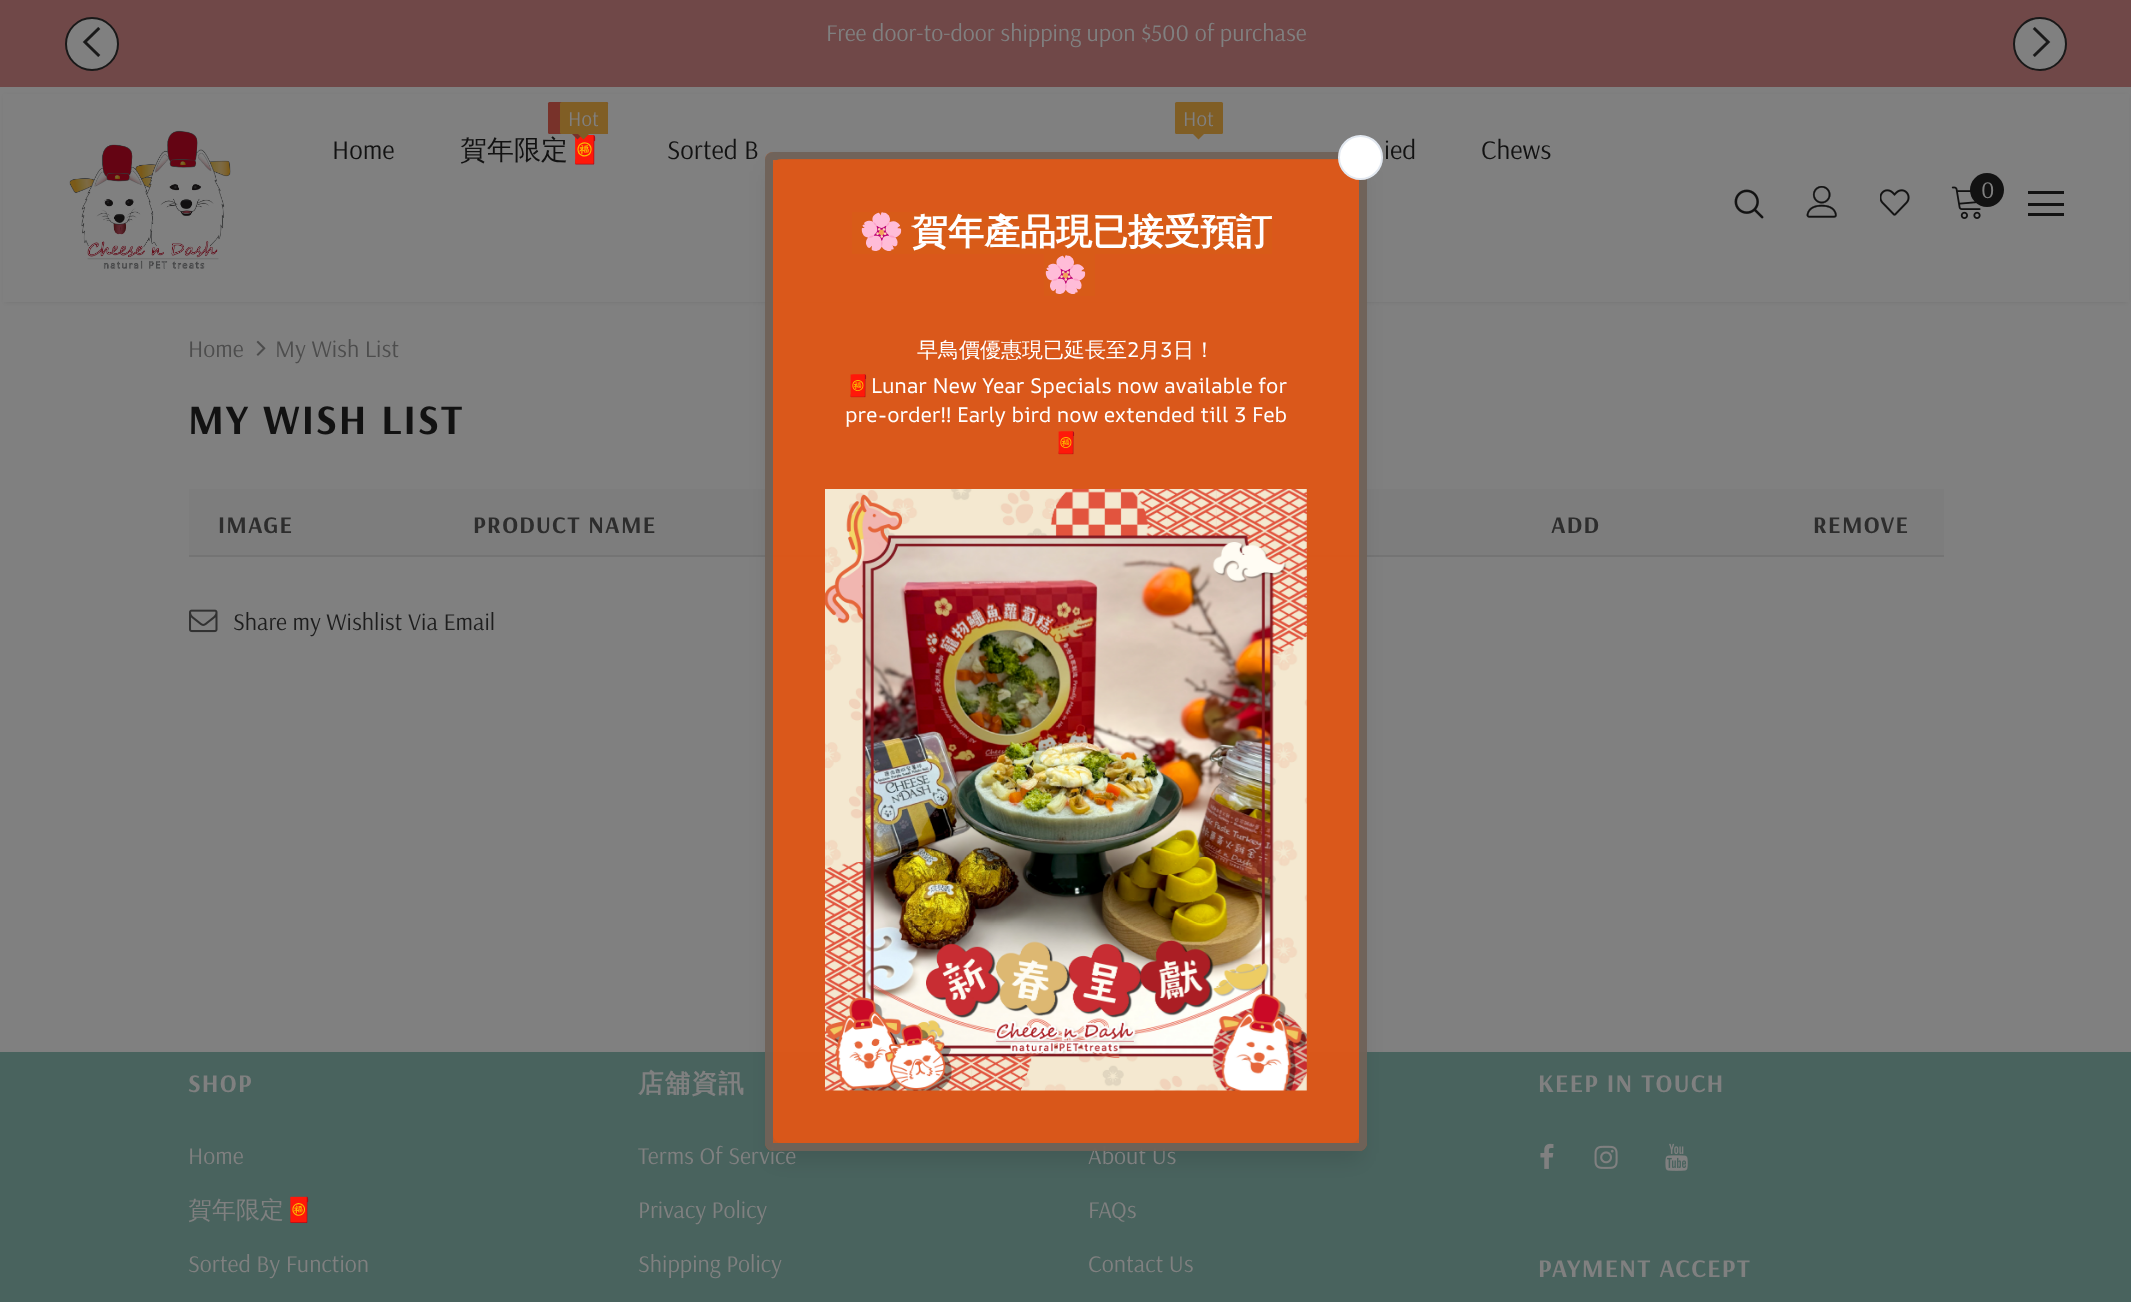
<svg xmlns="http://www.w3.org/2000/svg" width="2131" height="1302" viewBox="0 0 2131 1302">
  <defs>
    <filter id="blur1" x="-50%" y="-200%" width="200%" height="500%"><feGaussianBlur stdDeviation="2"/></filter>
    <clipPath id="clip1"><path d="M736 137H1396V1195H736ZM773 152H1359C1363.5 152 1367 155.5 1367 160V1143C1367 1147.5 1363.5 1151 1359 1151H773C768.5 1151 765 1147.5 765 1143V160C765 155.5 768.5 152 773 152Z" clip-rule="evenodd"/></clipPath>
    <filter id="blur2" x="-50%" y="-200%" width="200%" height="500%"><feGaussianBlur stdDeviation="11"/></filter>
  </defs>
  <rect width="100%" height="100%" fill="#808080"/>
  <rect x="0" y="0" width="2131" height="87" fill="#704848"/>
  <circle cx="92" cy="44" r="26" fill="#808080" stroke="#191919" stroke-width="2"/>
  <image x="82" y="27" width="19" height="30" href="img1.png"/>
  <text x="826" y="41" font-family="Arsenal" font-size="24" fill="#808080">Free door-to-door shipping upon $500 of purchase</text>
  <circle cx="2040" cy="44" r="26" fill="#808080" stroke="#191919" stroke-width="2"/>
  <image x="2032" y="27" width="19" height="30" href="img2.png"/>
  <rect x="5" y="96" width="2122" height="206" fill="#000000" fill-opacity="0.1" filter="url(#blur1)"/>
  <rect x="3" y="94" width="2126" height="208" fill="#808080"/>
  <image x="69" y="130" width="162" height="139" href="img3.png"/>
  <rect x="548" y="102" width="60" height="32" rx="1.5" fill="#78322a"/>
  <text x="568" y="159" font-family="Noto Color Emoji" font-size="27" fill="#121212">🧧</text>
  <path d="M570 132H585L577.5 139.5Z" fill="#78322a"/>
  <rect x="560" y="102" width="48" height="32" rx="1.5" fill="#805e25"/>
  <text x="568" y="126" font-family="Arsenal" font-size="21" fill="#808080">Hot</text>
  <path d="M576 132H591L583.5 139.5Z" fill="#805e25"/>
  <text x="460" y="159" font-family="WenQuanYi Zen Hei" font-size="27" font-weight="500" fill="#121212">賀年限定</text>
  <rect x="1175" y="102" width="48" height="32" rx="1.5" fill="#805e25"/>
  <text x="1183" y="126" font-family="Arsenal" font-size="21" fill="#808080">Hot</text>
  <path d="M1191 132H1206L1198.5 139.5Z" fill="#805e25"/>
  <text x="332" y="159" font-family="Arsenal" font-size="27" fill="#121212">Home</text>
  <text x="667" y="159" font-family="Arsenal" font-size="27" fill="#121212">Sorted B</text>
  <text x="1384" y="159" font-family="Arsenal" font-size="27" fill="#121212">ied</text>
  <text x="1481" y="159" font-family="Arsenal" font-size="27" fill="#121212">Chews</text>
  <image x="1734" y="189" width="30" height="30" href="img4.png"/>
  <image x="1806" y="186" width="31" height="32" href="img5.png"/>
  <image x="1880" y="189" width="30" height="27" href="img6.png"/>
  <image x="1951" y="186" width="30" height="33" href="img7.png"/>
  <circle cx="1987" cy="190" r="17" fill="#121212"/>
  <text x="1981" y="198" font-family="Arsenal" font-size="24" fill="#808080">0</text>
  <rect x="2028" y="191" width="36" height="3" fill="#121212"/>
  <rect x="2028" y="203" width="36" height="3" fill="#121212"/>
  <rect x="2028" y="213" width="36" height="3" fill="#121212"/>
  <rect x="189" y="489" width="1755" height="66" fill="#7d7d7d"/>
  <rect x="189" y="555" width="1755" height="2" fill="#747474"/>
  <rect x="0" y="1052" width="2131" height="250" fill="#49635e"/>
  <g clip-path="url(#clip1)">
    <rect x="770" y="171" width="592" height="990" rx="3" fill="#000000" fill-opacity="0.1" filter="url(#blur2)"/>
  </g>
  <text x="638" y="1164" font-family="Arsenal" font-size="24" fill="#808080">Terms Of Service</text>
  <text x="1088" y="1164" font-family="Arsenal" font-size="24" fill="#808080">About Us</text>
  <rect x="765" y="152" width="602" height="999" rx="8" fill="#dc5719" fill-opacity="0.85"/>
  <rect x="769" y="156" width="594" height="991" rx="4" fill="none" stroke="#49676f" stroke-opacity="0.7" stroke-width="8"/>
  <rect x="773" y="159" width="586" height="984" rx="8" fill="#dc5719" fill-opacity="0.85"/>
  <circle cx="1360.5" cy="157.5" r="21.5" fill="#ffffff" stroke="#e2e8f0" stroke-width="2"/>
  <rect x="852" y="212" width="420" height="42" fill="#d85b18"/>
  <text x="859" y="244" font-family="Noto Color Emoji" font-size="36" font-weight="bold" fill="#ffffff">🌸</text>
  <text x="912" y="244" font-family="WenQuanYi Zen Hei" font-size="36" font-weight="bold" fill="#ffffff">賀年產品現已接受預訂</text>
  <rect x="1044" y="254" width="51" height="42" fill="#d85b18"/>
  <text x="1043" y="287" font-family="Noto Color Emoji" font-size="36" font-weight="bold" fill="#ffffff">🌸</text>
  <text x="917" y="357" font-family="WenQuanYi Zen Hei" font-size="21" font-weight="500" fill="#ffffff">早鳥價優惠現已延長至</text>
  <text x="1127" y="357" font-family="AR One Sans" font-size="21" fill="#ffffff">2</text>
  <text x="1139" y="357" font-family="WenQuanYi Zen Hei" font-size="21" font-weight="500" fill="#ffffff">月</text>
  <text x="1160" y="357" font-family="AR One Sans" font-size="21" fill="#ffffff">3</text>
  <text x="1173" y="357" font-family="WenQuanYi Zen Hei" font-size="21" font-weight="500" fill="#ffffff">日！</text>
  <text x="845" y="393" font-family="Noto Color Emoji" font-size="21" fill="#ffffff">🧧</text>
  <text x="871" y="393" font-family="AR One Sans" font-size="21" fill="#ffffff">Lunar New Year Specials now available for</text>
  <text x="845" y="422" font-family="AR One Sans" font-size="21" fill="#ffffff">pre-order!! Early bird now extended till 3 Feb</text>
  <text x="1053" y="450" font-family="Noto Color Emoji" font-size="21" fill="#ffffff">🧧</text>
  <image x="825" y="489" width="482" height="602" href="img8.png"/>
  <text x="188" y="357" font-family="Arsenal" font-size="24" fill="#4d4d4d">Home</text>
  <image x="256" y="340" width="10" height="16" href="img9.png"/>
  <text x="275" y="357" font-family="Arsenal" font-size="24" fill="#4d4d4d">My Wish List</text>
  <text x="188" y="434" font-family="Arsenal" font-size="42" font-weight="bold" letter-spacing="2.1" fill="#121212">MY WISH LIST</text>
  <text x="218" y="533" font-family="Arsenal" font-size="24" font-weight="bold" letter-spacing="1.25" fill="#2d2d2d">IMAGE</text>
  <text x="473" y="533" font-family="Arsenal" font-size="24" font-weight="bold" letter-spacing="1.25" fill="#2d2d2d">PRODUCT NAME</text>
  <text x="1551" y="533" font-family="Arsenal" font-size="24" font-weight="bold" letter-spacing="1.25" fill="#2d2d2d">ADD</text>
  <text x="1813" y="533" font-family="Arsenal" font-size="24" font-weight="bold" letter-spacing="1.25" fill="#2d2d2d">REMOVE</text>
  <image x="189" y="609" width="29" height="24" href="img10.png"/>
  <text x="233" y="630" font-family="Arsenal" font-size="24" fill="#1e1e1e">Share my Wishlist Via Email</text>
  <text x="188" y="1092" font-family="Arsenal" font-size="25.5" font-weight="bold" letter-spacing="1.25" fill="#808080">SHOP</text>
  <text x="188" y="1164" font-family="Arsenal" font-size="24" fill="#808080">Home</text>
  <text x="188" y="1218" font-family="WenQuanYi Zen Hei" font-size="24" font-weight="500" fill="#808080">賀年限定</text>
  <text x="284" y="1218" font-family="Noto Color Emoji" font-size="24" fill="#808080">🧧</text>
  <text x="188" y="1272" font-family="Arsenal" font-size="24" fill="#808080">Sorted By Function</text>
  <text x="638" y="1092" font-family="WenQuanYi Zen Hei" font-size="25.5" font-weight="bold" letter-spacing="1.25" fill="#808080">店舖資訊</text>
  <text x="638" y="1218" font-family="Arsenal" font-size="24" fill="#808080">Privacy Policy</text>
  <text x="638" y="1272" font-family="Arsenal" font-size="24" fill="#808080">Shipping Policy</text>
  <text x="1088" y="1218" font-family="Arsenal" font-size="24" fill="#808080">FAQs</text>
  <text x="1088" y="1272" font-family="Arsenal" font-size="24" fill="#808080">Contact Us</text>
  <text x="1538" y="1092" font-family="Arsenal" font-size="25.5" font-weight="bold" letter-spacing="1.25" fill="#808080">KEEP IN TOUCH</text>
  <image x="1540" y="1143" width="14" height="26" href="img11.png"/>
  <image x="1594" y="1145" width="24" height="24" href="img12.png"/>
  <image x="1665" y="1143" width="23" height="28" href="img13.png"/>
  <text x="1538" y="1277" font-family="Arsenal" font-size="25.5" font-weight="bold" letter-spacing="1.25" fill="#808080">PAYMENT ACCEPT</text>
</svg>
